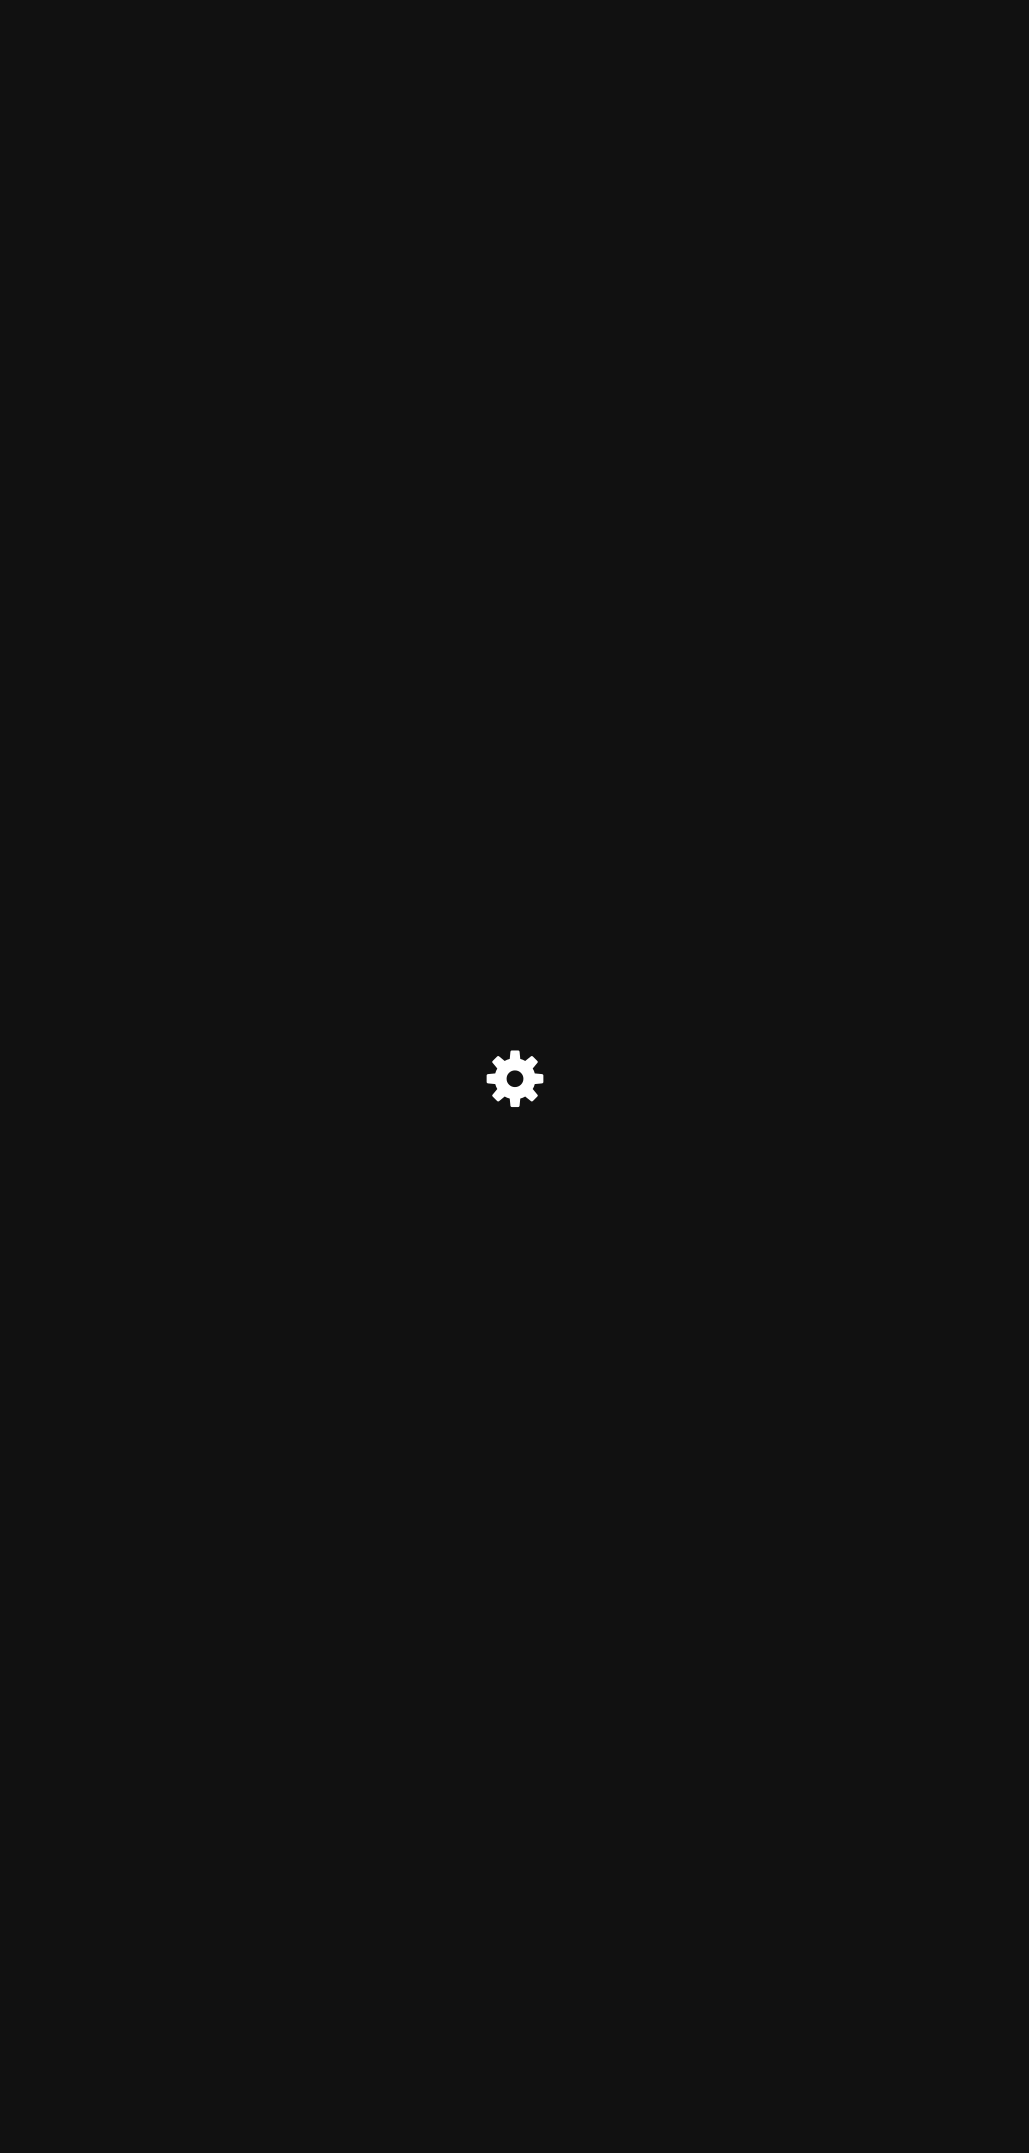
<svg xmlns="http://www.w3.org/2000/svg" width="1029" height="2153" viewBox="0 0 1029 2153">
  <rect width="100%" height="100%" fill="#111111"/>
  <image x="486" y="1050" width="58" height="58" href="img1.png"/>
</svg>
